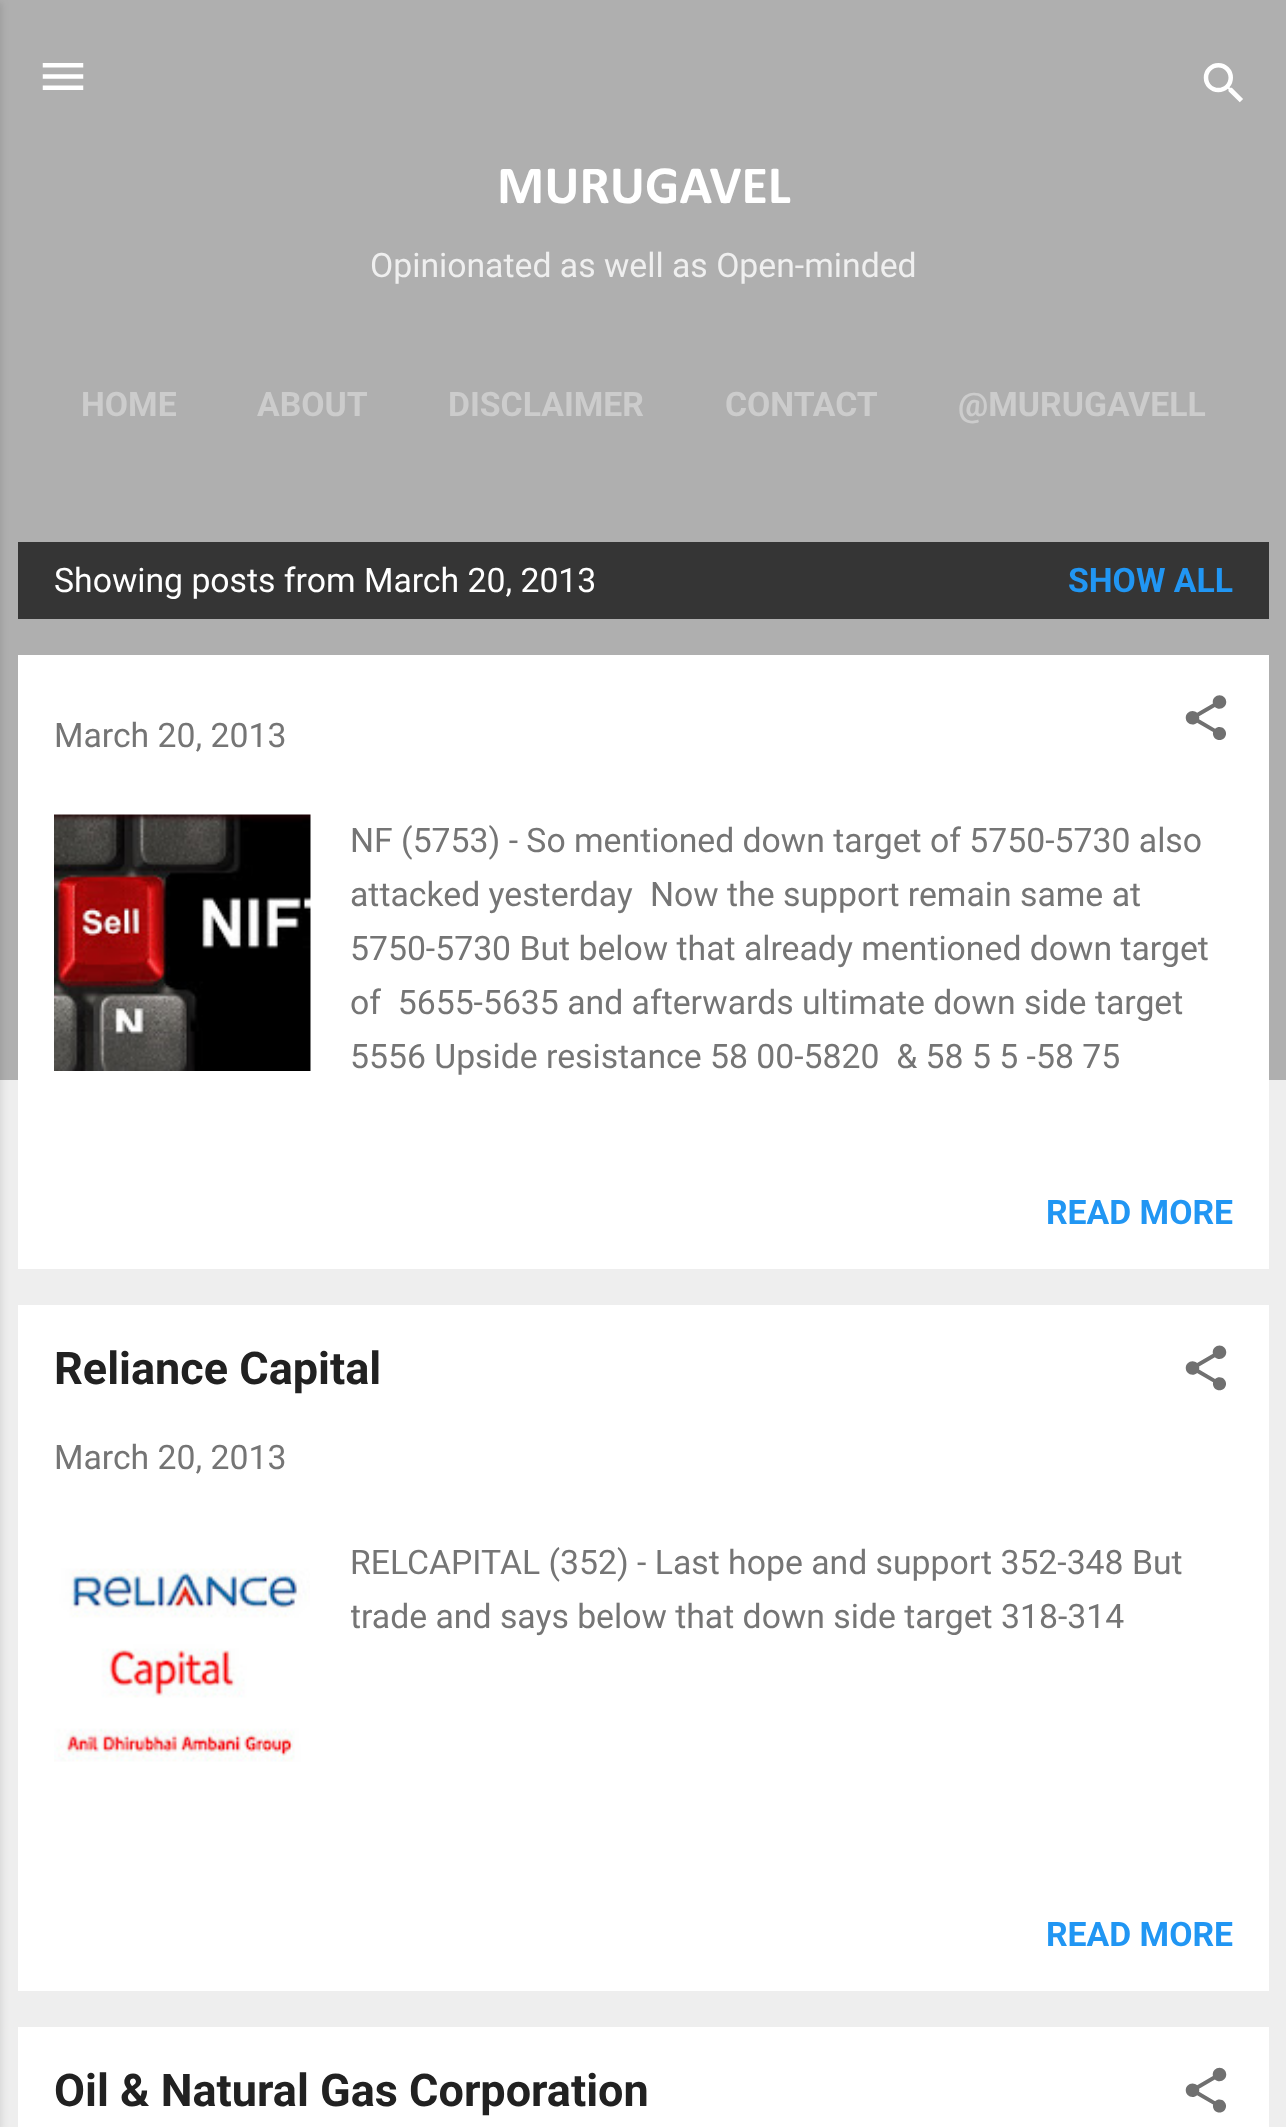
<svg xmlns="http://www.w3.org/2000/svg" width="1286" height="2127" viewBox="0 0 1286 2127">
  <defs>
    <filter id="blur1" x="-50%" y="-200%" width="200%" height="500%"><feGaussianBlur stdDeviation="3.5"/></filter>
    <clipPath id="clip1"><rect x="351" y="1537" width="882" height="108"/></clipPath>
  </defs>
  <rect width="100%" height="100%" fill="#eeeeee"/>
  <rect x="0" y="0" width="1286" height="1080" fill="#afafaf"/>
  <rect x="-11" y="2" width="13" height="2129" fill="#000000" fill-opacity="0.1" filter="url(#blur1)"/>
  <image x="42" y="63" width="42" height="27" href="img1.png"/>
  <image x="1203" y="63" width="40" height="40" href="img2.png"/>
  <text x="497" y="203" font-family="Calibri" font-size="54" font-weight="bold" fill="#ffffff">MURUGAVEL</text>
  <text x="370" y="277" font-family="Roboto" font-size="33.75" fill="#efefef">Opinionated as well as Open-minded</text>
  <text x="81" y="416" font-family="Roboto" font-size="33.75" font-weight="bold" fill="#cccccc">HOME</text>
  <text x="257" y="416" font-family="Roboto" font-size="33.75" font-weight="bold" fill="#cccccc">ABOUT</text>
  <text x="448" y="416" font-family="Roboto" font-size="33.75" font-weight="bold" fill="#cccccc">DISCLAIMER</text>
  <text x="725" y="416" font-family="Roboto" font-size="33.75" font-weight="bold" fill="#cccccc">CONTACT</text>
  <text x="958" y="416" font-family="Roboto" font-size="33.75" font-weight="bold" fill="#cccccc">@MURUGAVELL</text>
  <rect x="18" y="542" width="1251" height="77" fill="#353535"/>
  <text x="54" y="592" font-family="Roboto" font-size="33.75" fill="#ffffff">Showing posts from March 20, 2013</text>
  <text x="1068" y="592" font-family="Roboto" font-size="33.75" font-weight="bold" fill="#2196f3">SHOW ALL</text>
  <rect x="18" y="655" width="1251" height="614" fill="#ffffff"/>
  <text x="54" y="747" font-family="Roboto" font-size="33.75" fill="#757575">March 20, 2013</text>
  <image x="1185" y="695" width="42" height="45" href="img3.png"/>
  <image x="54" y="814" width="257" height="257" href="img4.png"/>
  <text x="350" y="852" font-family="Roboto" font-size="33.75" fill="#757575">NF (5753) - So mentioned down target of 5750-5730 also</text>
  <text x="350" y="906" font-family="Roboto" font-size="33.75" fill="#757575">attacked yesterday</text>
  <text x="650" y="906" font-family="Roboto" font-size="33.75" fill="#757575">Now the support remain same at</text>
  <text x="350" y="960" font-family="Roboto" font-size="33.75" fill="#757575">5750-5730 But below that already mentioned down target</text>
  <text x="350" y="1014" font-family="Roboto" font-size="33.75" fill="#757575" xml:space="preserve">of  5655-5635 and afterwards ultimate down side target</text>
  <text x="350" y="1068" font-family="Roboto" font-size="33.75" fill="#757575" xml:space="preserve">5556 Upside resistance 58 00-5820  &amp; 58 5 5 -58 75</text>
  <text x="1046" y="1224" font-family="Roboto" font-size="33.75" font-weight="bold" fill="#2196f3">READ MORE</text>
  <rect x="18" y="1305" width="1251" height="686" fill="#ffffff"/>
  <text x="54" y="1384" font-family="Roboto" font-size="45" font-weight="bold" fill="#212121">Reliance Capital</text>
  <image x="1185" y="1345" width="42" height="46" href="img5.png"/>
  <text x="54" y="1469" font-family="Roboto" font-size="33.75" fill="#757575">March 20, 2013</text>
  <image x="54" y="1568" width="256" height="194" href="img6.png"/>
  <text x="350" y="1574" font-family="Roboto" font-size="33.75" fill="#757575">RELCAPITAL (352) - Last hope and support 352-348 But</text>
  <g clip-path="url(#clip1)">
    <text x="350" y="1628" font-family="Roboto" font-size="33.75" fill="#757575">trade and says below that down side target 318-314</text>
  </g>
  <text x="1046" y="1946" font-family="Roboto" font-size="33.75" font-weight="bold" fill="#2196f3">READ MORE</text>
  <rect x="18" y="2027" width="1251" height="100" fill="#ffffff"/>
  <text x="54" y="2106" font-family="Roboto" font-size="45" font-weight="bold" fill="#212121">Oil &amp; Natural Gas Corporation</text>
  <image x="1185" y="2067" width="42" height="46" href="img7.png"/>
</svg>
